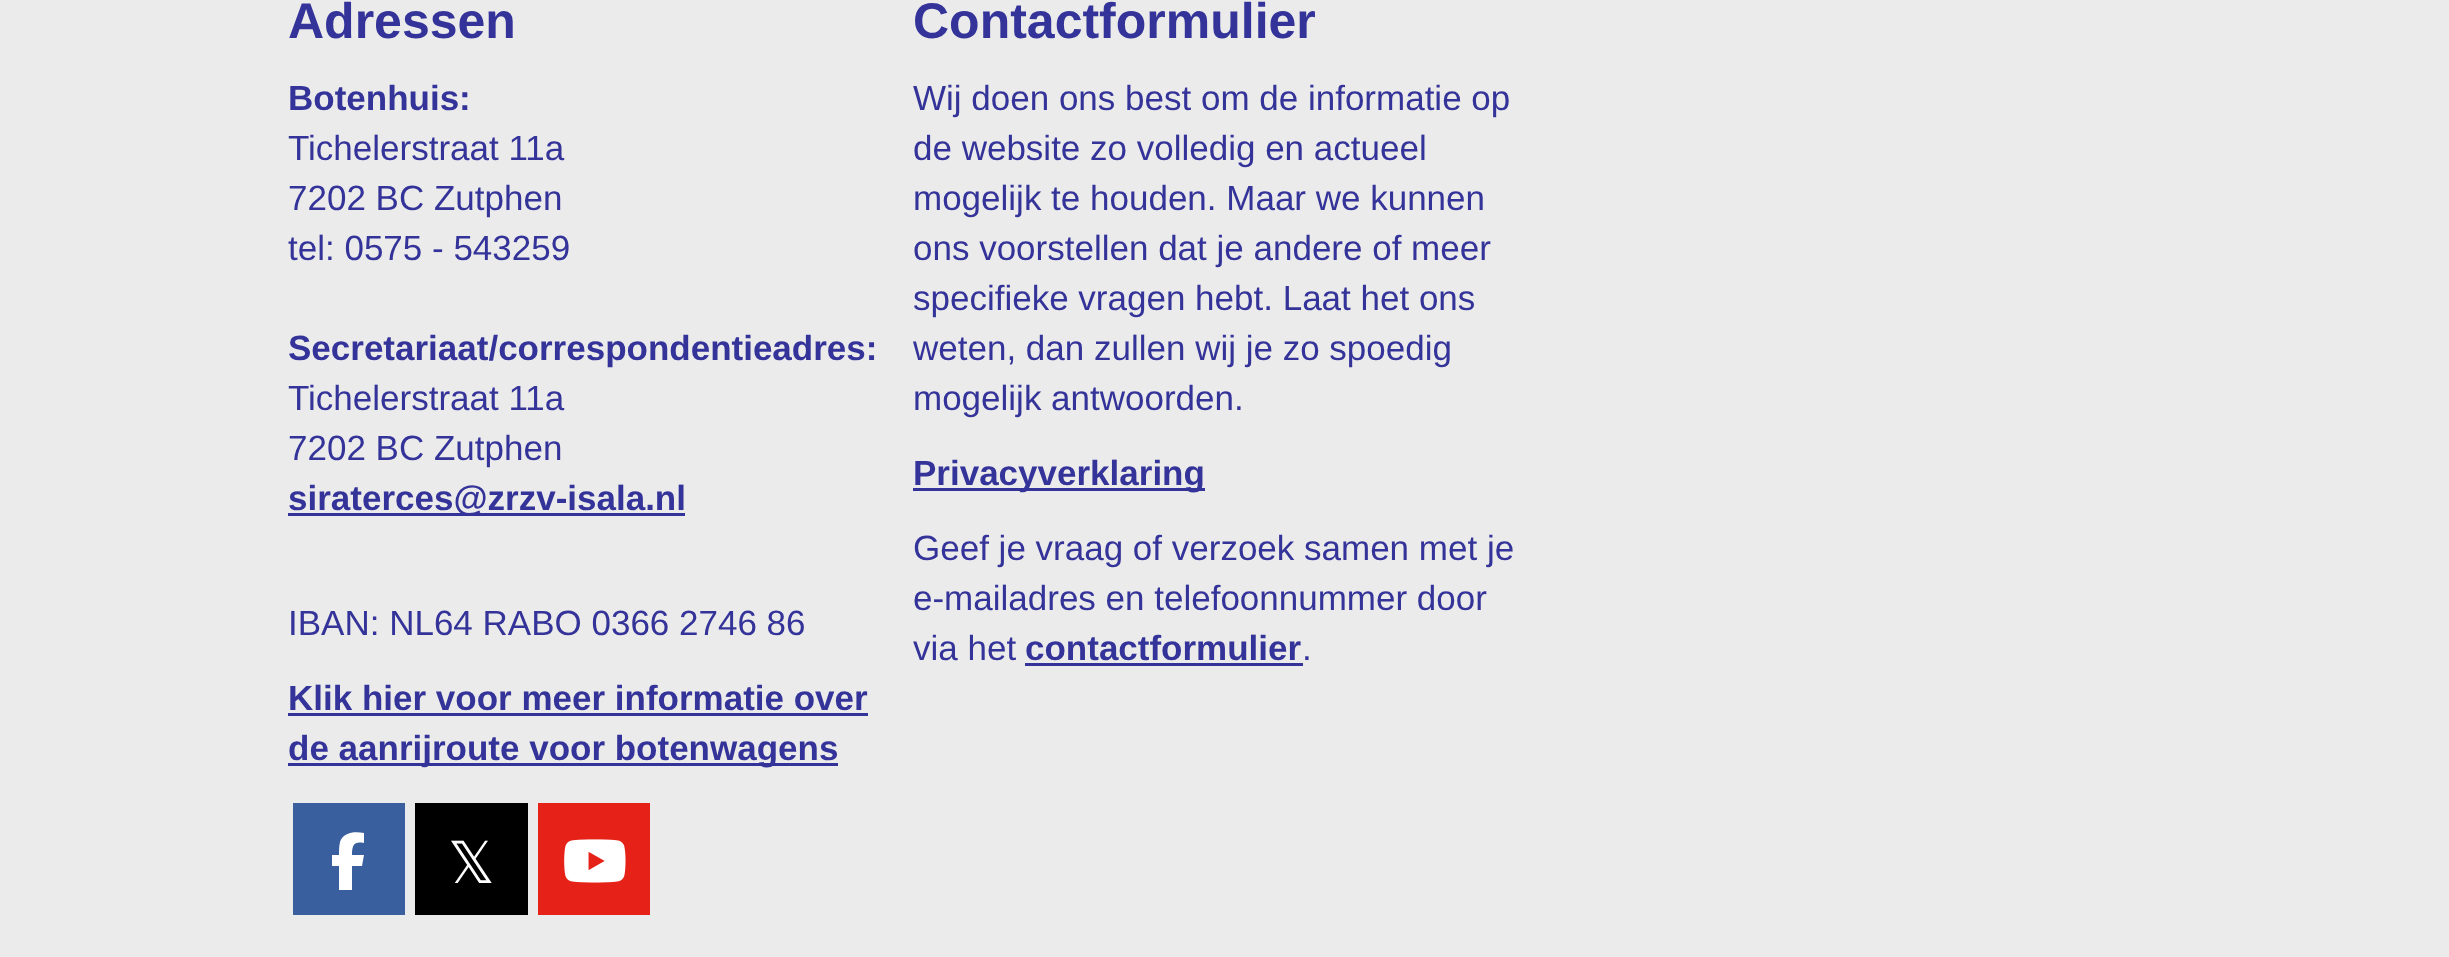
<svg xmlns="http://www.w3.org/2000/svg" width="2449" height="957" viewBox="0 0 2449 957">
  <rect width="100%" height="100%" fill="#ebebeb"/>
  <text x="288" y="38" font-family="Liberation Sans" font-size="50" font-weight="bold" fill="#343399">Adressen</text>
  <text x="288" y="110" font-family="Liberation Sans" font-size="35" font-weight="bold" fill="#343399">Botenhuis:</text>
  <text x="288" y="160" font-family="Liberation Sans" font-size="35" fill="#343399">Tichelerstraat 11a</text>
  <text x="288" y="210" font-family="Liberation Sans" font-size="35" fill="#343399">7202 BC Zutphen</text>
  <text x="288" y="260" font-family="Liberation Sans" font-size="35" fill="#343399">tel: 0575 - 543259</text>
  <text x="288" y="360" font-family="Liberation Sans" font-size="35" font-weight="bold" fill="#343399">Secretariaat/correspondentieadres:</text>
  <text x="288" y="410" font-family="Liberation Sans" font-size="35" fill="#343399">Tichelerstraat 11a</text>
  <text x="288" y="460" font-family="Liberation Sans" font-size="35" fill="#343399">7202 BC Zutphen</text>
  <rect x="288" y="513" width="397" height="3" fill="#343399"/>
  <text x="288" y="510" font-family="Liberation Sans" font-size="35" font-weight="bold" fill="#343399">siraterces@zrzv-isala.nl</text>
  <text x="288" y="635" font-family="Liberation Sans" font-size="35" fill="#343399">IBAN: NL64 RABO 0366 2746 86</text>
  <text x="288" y="710" font-family="Liberation Sans" font-size="35" font-weight="bold" fill="#343399">Klik hier voor meer informatie over</text>
  <rect x="288" y="713" width="580" height="3" fill="#343399"/>
  <rect x="288" y="763" width="550" height="3" fill="#343399"/>
  <text x="288" y="760" font-family="Liberation Sans" font-size="35" font-weight="bold" fill="#343399">de aanrijroute voor botenwagens</text>
  <rect x="293" y="803" width="112" height="112" fill="#395f9e"/>
  <path d="M339 866V890V866V890H352V866H362L364 855H352C352 845 354 841 364 843V833C355 831 343 832 340 842C339 846 339 851 339 855H332V866Z" fill="#ffffff"/>
  <rect x="415" y="803" width="113" height="112" fill="#000000"/>
  <text x="448" y="883" font-family="DejaVu Sans" font-size="58" fill="#ffffff">𝕏</text>
  <rect x="538" y="803" width="112" height="112" fill="#e62117"/>
  <image x="564" y="839" width="62" height="44" href="img1.png"/>
  <text x="913" y="38" font-family="Liberation Sans" font-size="50" font-weight="bold" fill="#343399">Contactformulier</text>
  <text x="913" y="110" font-family="Liberation Sans" font-size="35" fill="#343399">Wij doen ons best om de informatie op</text>
  <text x="913" y="160" font-family="Liberation Sans" font-size="35" fill="#343399">de website zo volledig en actueel</text>
  <text x="913" y="210" font-family="Liberation Sans" font-size="35" fill="#343399">mogelijk te houden. Maar we kunnen</text>
  <text x="913" y="260" font-family="Liberation Sans" font-size="35" fill="#343399">ons voorstellen dat je andere of meer</text>
  <text x="913" y="310" font-family="Liberation Sans" font-size="35" fill="#343399">specifieke vragen hebt. Laat het ons</text>
  <text x="913" y="360" font-family="Liberation Sans" font-size="35" fill="#343399">weten, dan zullen wij je zo spoedig</text>
  <text x="913" y="410" font-family="Liberation Sans" font-size="35" fill="#343399">mogelijk antwoorden.</text>
  <rect x="913" y="488" width="292" height="3" fill="#343399"/>
  <text x="913" y="485" font-family="Liberation Sans" font-size="35" font-weight="bold" fill="#343399">Privacyverklaring</text>
  <text x="913" y="560" font-family="Liberation Sans" font-size="35" fill="#343399">Geef je vraag of verzoek samen met je</text>
  <text x="913" y="610" font-family="Liberation Sans" font-size="35" fill="#343399">e-mailadres en telefoonnummer door</text>
  <text x="913" y="660" font-family="Liberation Sans" font-size="35" fill="#343399">via het</text>
  <text x="1025" y="660" font-family="Liberation Sans" font-size="35" font-weight="bold" fill="#343399">contactformulier</text>
  <rect x="1025" y="663" width="278" height="3" fill="#343399"/>
  <text x="1302" y="660" font-family="Liberation Sans" font-size="35" fill="#343399">.</text>
</svg>
